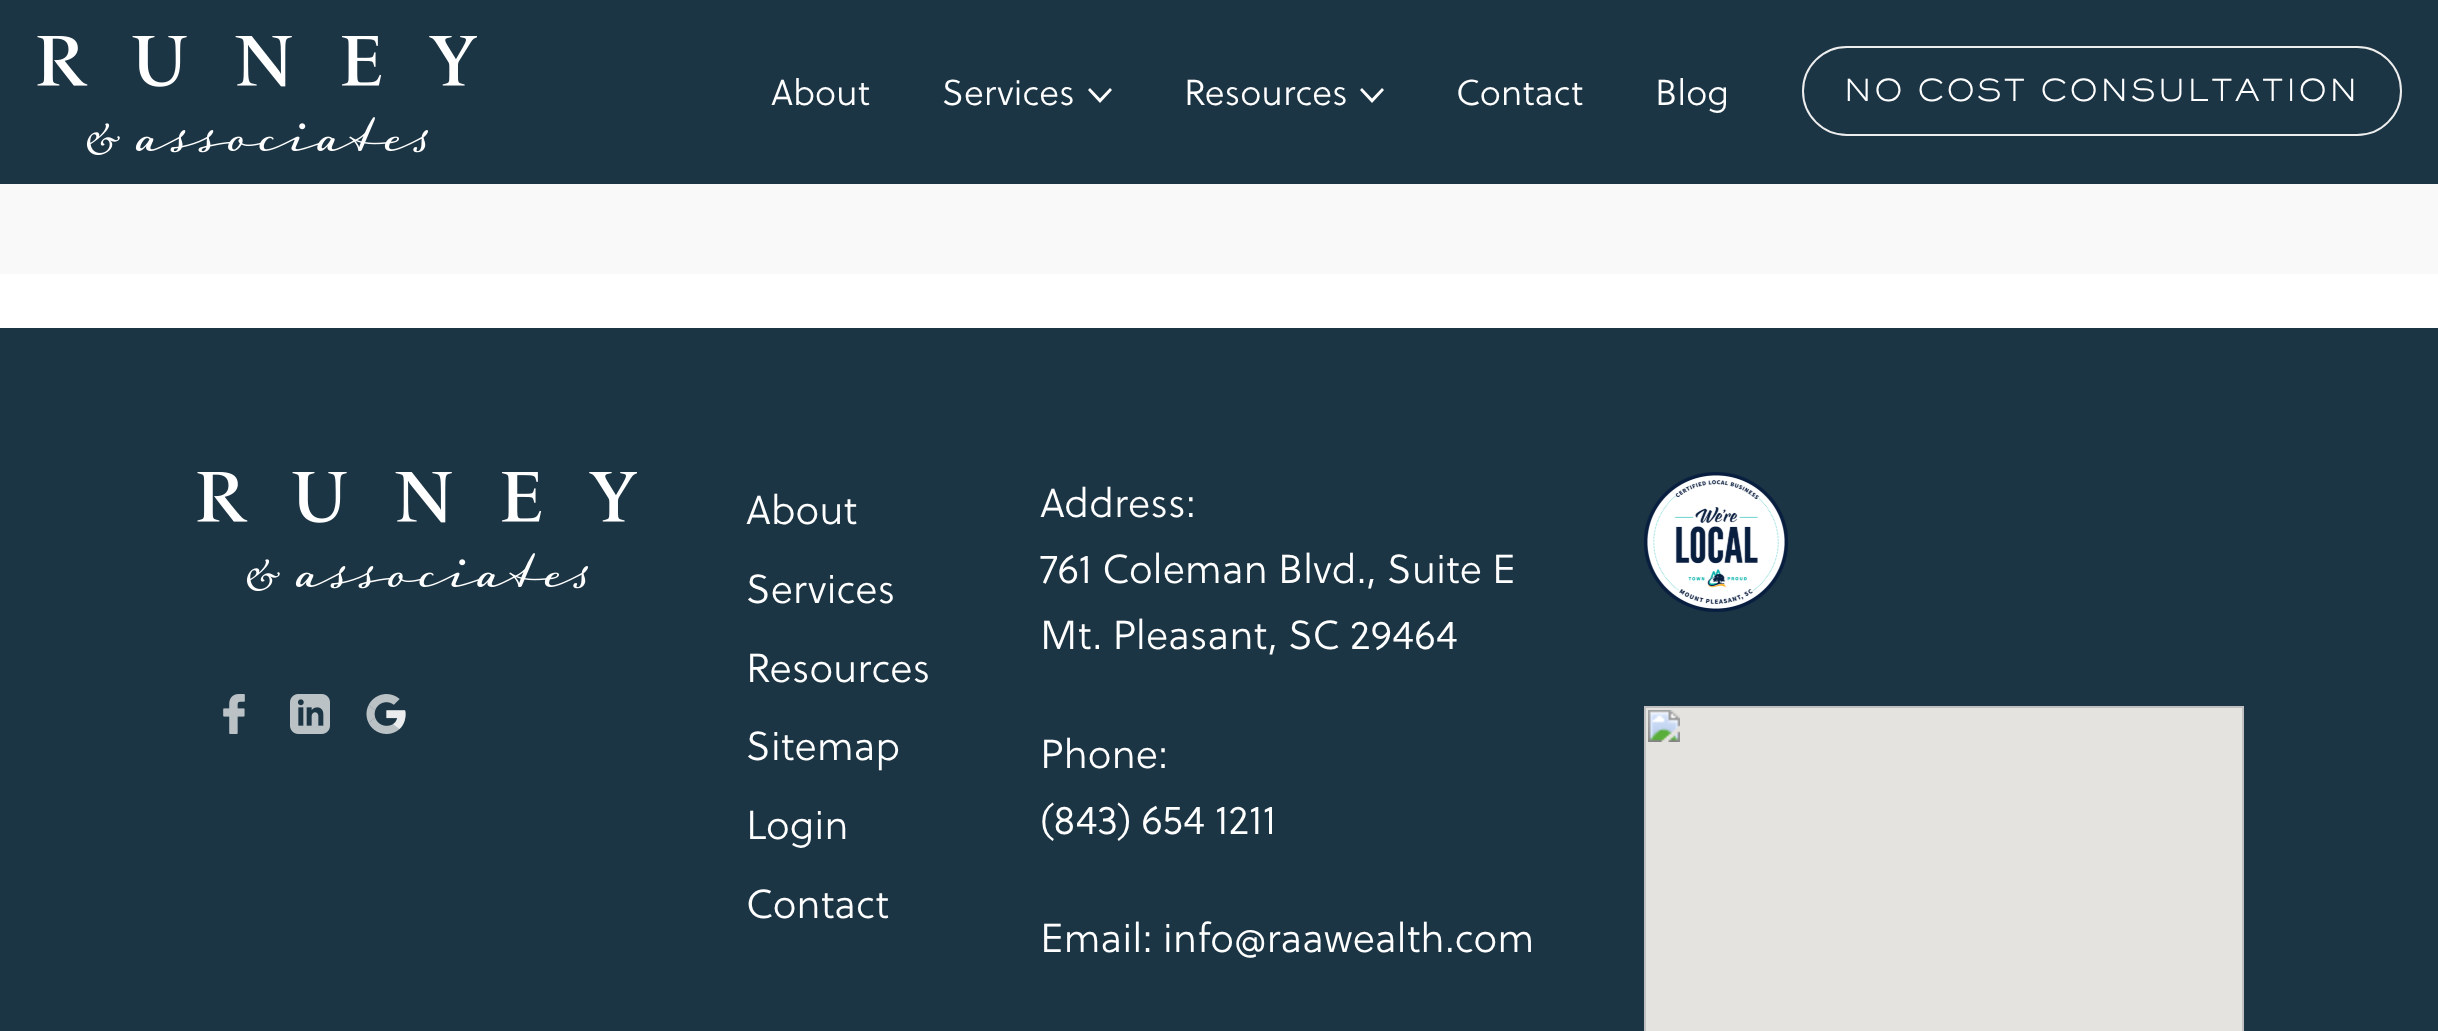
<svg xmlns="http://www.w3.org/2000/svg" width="2438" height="1031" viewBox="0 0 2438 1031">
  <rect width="100%" height="100%" fill="#ffffff"/>
  <rect x="0" y="0" width="2438" height="184" fill="#1c3544"/>
  <image x="37" y="36" width="440" height="119" href="img1.png"/>
  <text x="771" y="105" font-family="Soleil" font-size="36" font-weight="300" fill="#ffffff">About</text>
  <text x="942" y="105" font-family="Soleil" font-size="36" font-weight="300" fill="#ffffff">Services</text>
  <path d="M1112 90L1110 88L1100 98.5L1090 88L1088 90L1100 103Z" fill="#ffffff" fill-rule="evenodd"/>
  <text x="1184" y="105" font-family="Soleil" font-size="36" font-weight="300" fill="#ffffff">Resources</text>
  <path d="M1384 90L1382 88L1372 98.5L1362 88L1360 90L1372 103Z" fill="#ffffff" fill-rule="evenodd"/>
  <text x="1456" y="105" font-family="Soleil" font-size="36" font-weight="300" fill="#ffffff">Contact</text>
  <text x="1655" y="105" font-family="Soleil" font-size="36" font-weight="300" fill="#ffffff">Blog</text>
  <rect x="1803" y="47" width="598" height="88" rx="44" fill="none" stroke="#eeeeee" stroke-width="2"/>
  <text x="1843" y="101" font-family="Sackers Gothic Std" font-size="30" font-weight="300" letter-spacing="1.5" fill="#ffffff">NO COST CONSULTATION</text>
  <rect x="0" y="184" width="2438" height="90" fill="#f9f9f9"/>
  <rect x="0" y="328" width="2438" height="703" fill="#1c3544"/>
  <image x="197" y="472" width="440" height="119" href="img1.png"/>
  <image x="223" y="694" width="22" height="40" href="img2.png"/>
  <image x="290" y="694" width="40" height="40" href="img3.png"/>
  <image x="366" y="694" width="40" height="40" href="img4.png"/>
  <text x="746" y="524" font-family="Soleil" font-size="40.5" font-weight="300" fill="#ffffff">About</text>
  <text x="746" y="603" font-family="Soleil" font-size="40.5" font-weight="300" fill="#ffffff">Services</text>
  <text x="746" y="682" font-family="Soleil" font-size="40.5" font-weight="300" fill="#ffffff">Resources</text>
  <text x="746" y="760" font-family="Soleil" font-size="40.5" font-weight="300" fill="#ffffff">Sitemap</text>
  <text x="746" y="839" font-family="Soleil" font-size="40.5" font-weight="300" fill="#ffffff">Login</text>
  <text x="746" y="918" font-family="Soleil" font-size="40.5" font-weight="300" fill="#ffffff">Contact</text>
  <text x="1040" y="517" font-family="Soleil" font-size="40.5" font-weight="300" fill="#ffffff">Address:</text>
  <text x="1040" y="583" font-family="Soleil" font-size="40.5" font-weight="300" fill="#ffffff">761 Coleman Blvd., Suite E</text>
  <text x="1040" y="649" font-family="Soleil" font-size="40.5" font-weight="300" fill="#ffffff">Mt. Pleasant, SC 29464</text>
  <text x="1040" y="768" font-family="Soleil" font-size="40.5" font-weight="300" fill="#ffffff">Phone:</text>
  <text x="1040" y="834" font-family="Soleil" font-size="40.5" font-weight="300" fill="#ffffff">(843) 654 1211</text>
  <text x="1040" y="952" font-family="Soleil" font-size="40.5" font-weight="300" fill="#ffffff">Email: info@raawealth.com</text>
  <image x="1644" y="472" width="144" height="140" href="img5.png"/>
  <image x="1644" y="706" width="600" height="325" href="img6.png"/>
</svg>
